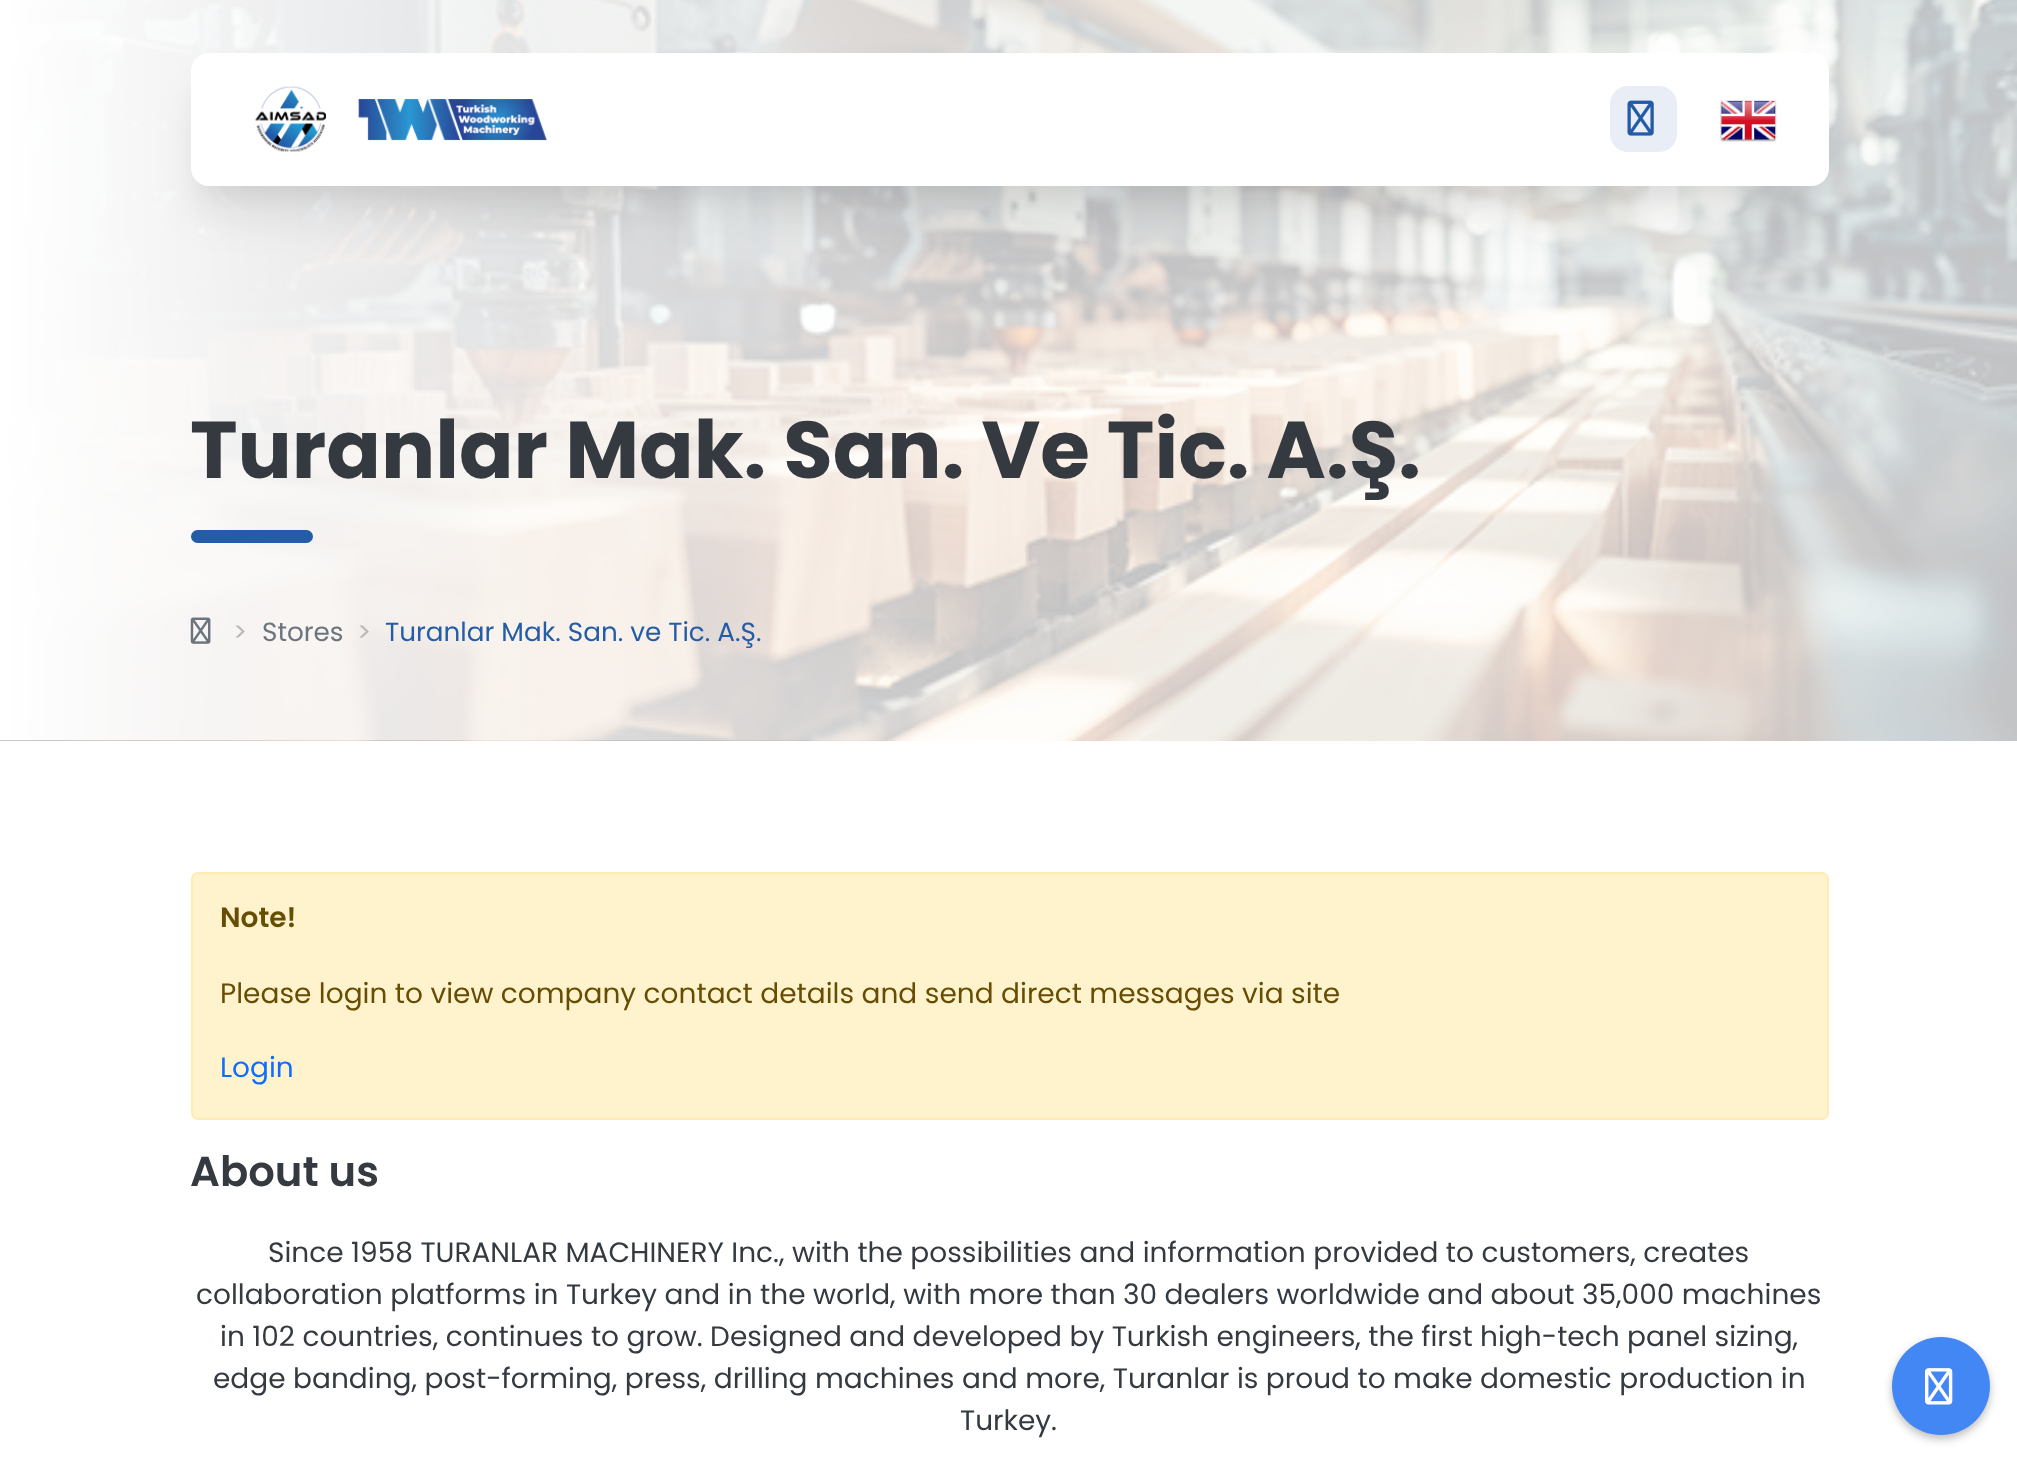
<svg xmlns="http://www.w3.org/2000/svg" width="2017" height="1462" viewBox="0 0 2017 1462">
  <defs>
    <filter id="blur1" x="-50%" y="-200%" width="200%" height="500%"><feGaussianBlur stdDeviation="9"/></filter>
    <filter id="blur2" x="-50%" y="-200%" width="200%" height="500%"><feGaussianBlur stdDeviation="22"/></filter>
    <filter id="blur3" x="-50%" y="-200%" width="200%" height="500%"><feGaussianBlur stdDeviation="4.5"/></filter>
  </defs>
  <rect width="100%" height="100%" fill="#ffffff"/>
  <image x="0" y="0" width="2017" height="741" href="img4.png"/>
  <rect x="200" y="79" width="1620" height="115" rx="9" fill="#000000" fill-opacity="0.04" filter="url(#blur1)"/>
  <rect x="200" y="96" width="1620" height="116" rx="9" fill="#000000" fill-opacity="0.1" filter="url(#blur2)"/>
  <rect x="191" y="53" width="1638" height="133" rx="18" fill="#ffffff"/>
  <image x="255" y="86" width="292" height="66" href="img1.png"/>
  <image x="1627" y="100" width="27" height="36" href="img2.png"/>
  <rect x="1610" y="86" width="67" height="66" rx="18" fill="#235ca7" fill-opacity="0.1"/>
  <image x="1720" y="100" width="57" height="42" href="img3.png"/>
  <text x="190" y="478" font-family="Poppins" font-size="80.5" font-weight="bold" fill="#343a40">Turanlar Mak. San. Ve Tic. A.Ş.</text>
  <rect x="191" y="530" width="122" height="13" rx="6.5" fill="#235ca7"/>
  <image x="190" y="617" width="21" height="27" href="img5.png"/>
  <text x="233" y="641" font-family="Poppins" font-size="26.25" fill="#bab7b6">&gt;</text>
  <text x="262" y="641" font-family="Poppins" font-size="26.25" fill="#6c757d">Stores</text>
  <text x="357" y="641" font-family="Poppins" font-size="26.25" fill="#bab7b6">&gt;</text>
  <text x="385" y="641" font-family="Poppins" font-size="26.25" fill="#235ca7">Turanlar Mak. San. ve Tic. A.Ş.</text>
  <rect x="192" y="873" width="1636" height="246" rx="6" fill="#fff3cd" stroke="#ffecb5" stroke-width="2"/>
  <text x="220" y="927" font-family="Poppins" font-size="28" font-weight="600" fill="#664d03">Note!</text>
  <text x="220" y="1003" font-family="Poppins" font-size="28" fill="#664d03">Please login to view company contact details and send direct messages via site</text>
  <text x="220" y="1077" font-family="Poppins" font-size="28" fill="#0d6efd">Login</text>
  <text x="190" y="1186" font-family="Poppins" font-size="41.75" font-weight="600" fill="#343a40">About us</text>
  <text x="268" y="1262" font-family="Poppins" font-size="28" fill="#343a40">Since 1958 TURANLAR MACHINERY Inc., with the possibilities and information provided to customers, creates</text>
  <text x="196" y="1304" font-family="Poppins" font-size="28" fill="#343a40">collaboration platforms in Turkey and in the world, with more than 30 dealers worldwide and about 35,000 machines</text>
  <text x="220" y="1346" font-family="Poppins" font-size="28" fill="#343a40">in 102 countries, continues to grow. Designed and developed by Turkish engineers, the first high-tech panel sizing,</text>
  <text x="213" y="1388" font-family="Poppins" font-size="28" fill="#343a40">edge banding, post-forming, press, drilling machines and more, Turanlar is proud to make domestic production in</text>
  <text x="960" y="1430" font-family="Poppins" font-size="28" fill="#343a40">Turkey.</text>
  <rect x="1892" y="1341" width="98" height="98" rx="49" fill="#000000" fill-opacity="0.26" filter="url(#blur3)"/>
  <circle cx="1941" cy="1386" r="49" fill="#4387f4"/>
  <image x="1925" y="1368" width="28" height="37" href="img6.png"/>
</svg>
